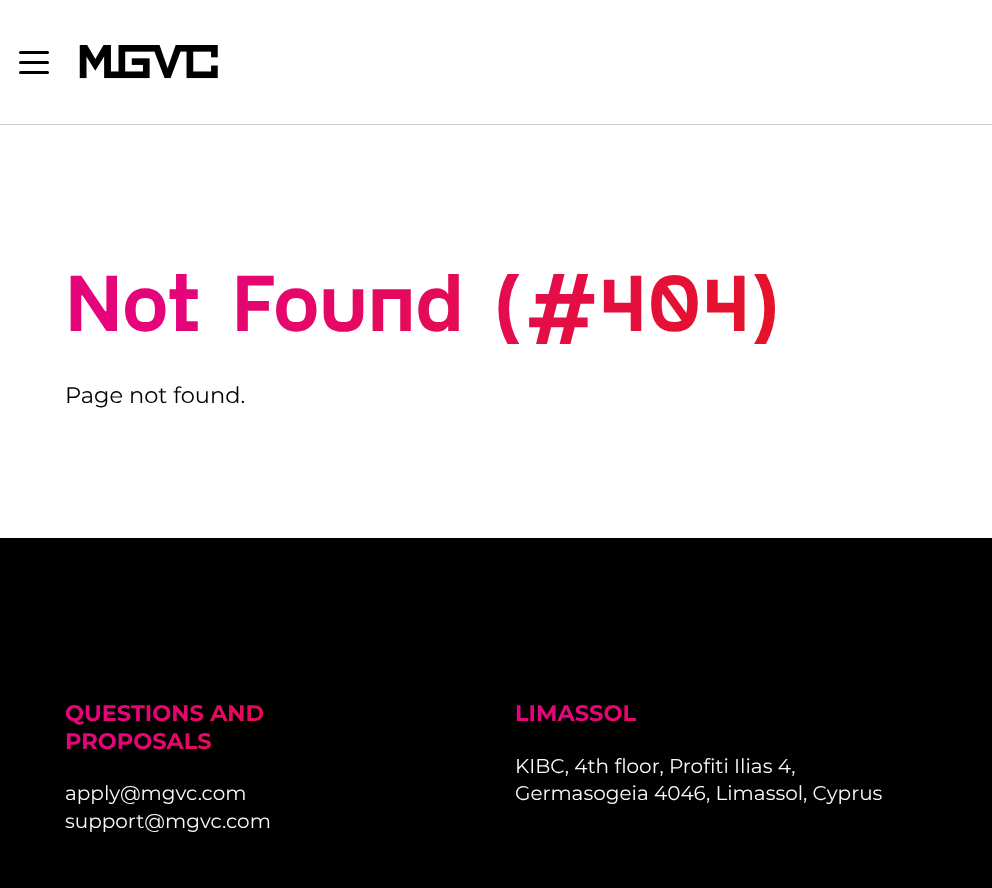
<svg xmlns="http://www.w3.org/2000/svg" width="992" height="888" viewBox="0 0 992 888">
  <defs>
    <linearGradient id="g1" gradientUnits="userSpaceOnUse" x1="128" y1="121" x2="865" y2="477"><stop offset="0.16" stop-color="#e5047a"/><stop offset="0.9" stop-color="#e4151d"/></linearGradient>
    <linearGradient id="g2" gradientUnits="userSpaceOnUse" x1="93" y1="641" x2="449" y2="814"><stop offset="0.16" stop-color="#e5047a"/><stop offset="0.9" stop-color="#e4151d"/></linearGradient>
    <linearGradient id="g3" gradientUnits="userSpaceOnUse" x1="549" y1="630" x2="894" y2="797"><stop offset="0.16" stop-color="#e5047a"/><stop offset="0.9" stop-color="#e4151d"/></linearGradient>
  </defs>
  <rect width="100%" height="100%" fill="#ffffff"/>
  <rect x="0" y="124" width="992" height="1" fill="#cbcbcb"/>
  <rect x="19" y="51" width="30" height="3" rx="1.5" fill="#000000"/>
  <rect x="19" y="61" width="30" height="3" rx="1.5" fill="#000000"/>
  <rect x="19" y="71" width="30" height="3" rx="1.5" fill="#000000"/>
  <image x="79" y="45" width="139" height="34" href="img1.png"/>
  <text x="65" y="331" font-family="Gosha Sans" font-size="81.25" font-weight="bold" fill="url(#g1)">Not Found (#404)</text>
  <text x="65" y="403" font-family="Montserrat" font-size="22.5" fill="#000000">Page not found.</text>
  <rect x="0" y="538" width="992" height="350" fill="#000000"/>
  <text x="65" y="721" font-family="Montserrat" font-size="22.5" font-weight="bold" fill="url(#g2)">QUESTIONS AND</text>
  <text x="65" y="749" font-family="Montserrat" font-size="22.5" font-weight="bold" fill="url(#g2)">PROPOSALS</text>
  <text x="65" y="800" font-family="Montserrat" font-size="20" fill="#fafafa">apply@mgvc.com</text>
  <text x="65" y="828" font-family="Montserrat" font-size="20" fill="#fafafa">support@mgvc.com</text>
  <text x="515" y="721" font-family="Montserrat" font-size="22.5" font-weight="bold" fill="url(#g3)">LIMASSOL</text>
  <text x="515" y="773" font-family="Montserrat" font-size="20" fill="#fafafa">KIBC, 4th floor, Profiti Ilias 4,</text>
  <text x="515" y="800" font-family="Montserrat" font-size="20" fill="#fafafa">Germasogeia 4046, Limassol, Cyprus</text>
</svg>
